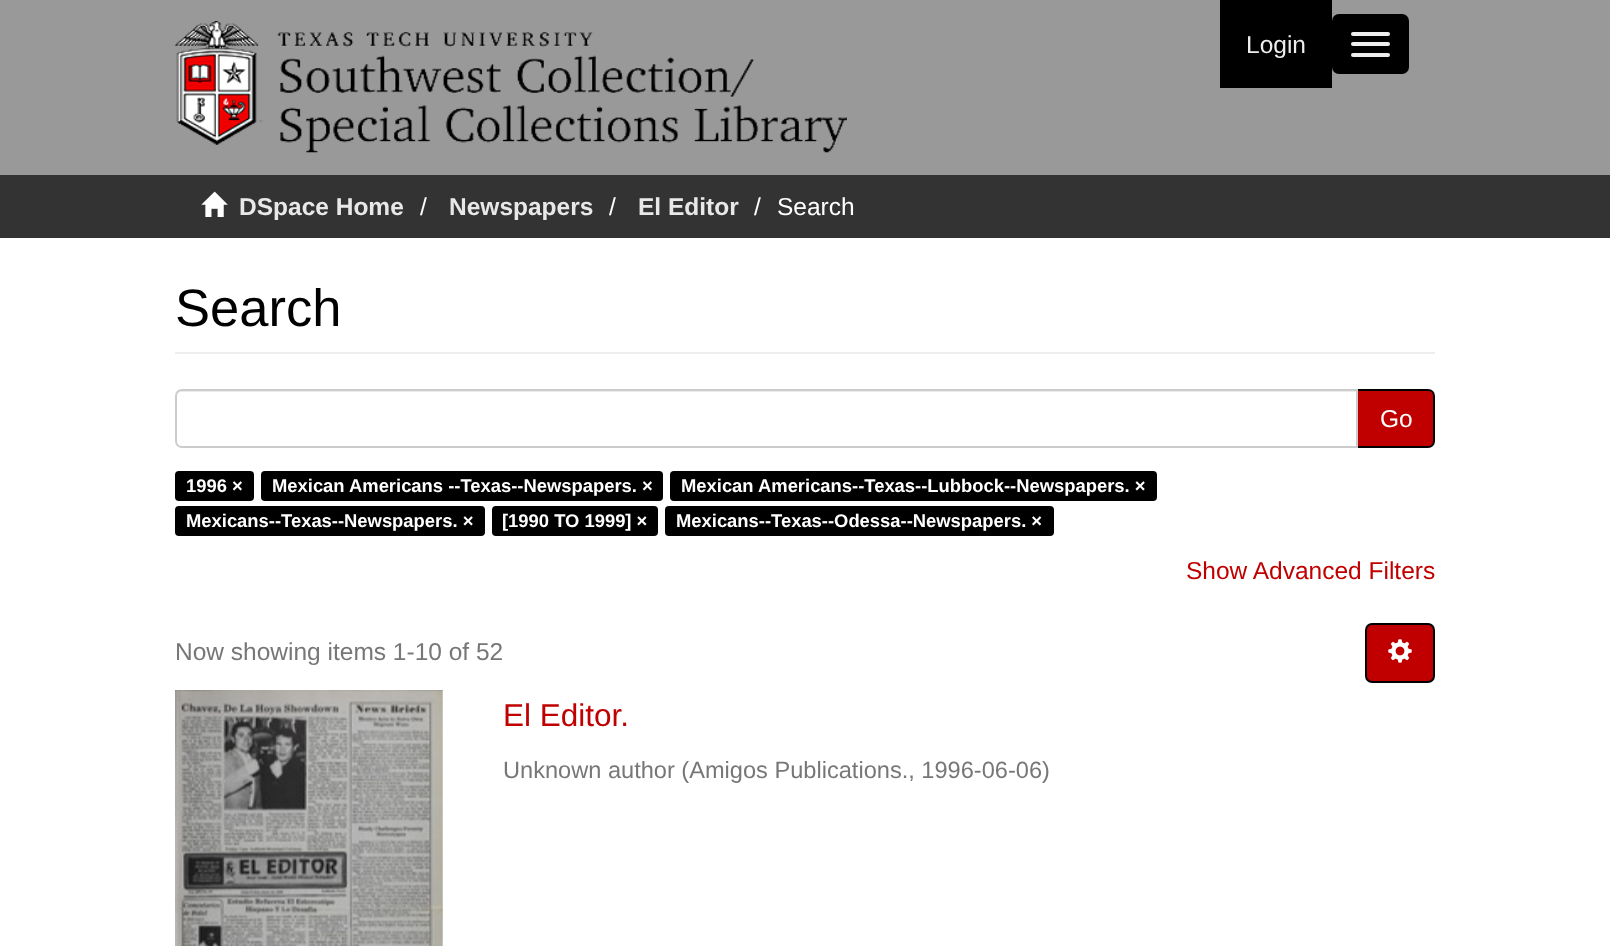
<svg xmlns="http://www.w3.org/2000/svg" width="1610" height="946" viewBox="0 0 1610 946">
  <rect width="100%" height="100%" fill="#ffffff"/>
  <rect x="0" y="0" width="1610" height="175" fill="#999999"/>
  <image x="175" y="21" width="672" height="132" href="img1.png"/>
  <rect x="1220" y="0" width="112" height="88" fill="#000000"/>
  <text x="1246" y="53" font-family="Liberation Sans" font-size="24.5" fill="#eeeeee">Login</text>
  <rect x="1332" y="14" width="77" height="60" rx="7" fill="#000000"/>
  <rect x="1351" y="32" width="39" height="4" rx="2" fill="#eeeeee"/>
  <rect x="1351" y="42" width="39" height="4" rx="2" fill="#eeeeee"/>
  <rect x="1351" y="53" width="39" height="4" rx="2" fill="#eeeeee"/>
  <rect x="0" y="175" width="1610" height="63" fill="#333333"/>
  <image x="201" y="191" width="27" height="26" href="img2.png"/>
  <text x="239" y="215" font-family="Liberation Sans" font-size="24.5" font-weight="bold" fill="#e8e8e8">DSpace Home</text>
  <text x="420" y="215" font-family="Liberation Sans" font-size="24.5" fill="#ffffff">/</text>
  <text x="449" y="215" font-family="Liberation Sans" font-size="24.5" font-weight="bold" fill="#e8e8e8">Newspapers</text>
  <text x="609" y="215" font-family="Liberation Sans" font-size="24.5" fill="#ffffff">/</text>
  <text x="638" y="215" font-family="Liberation Sans" font-size="24.5" font-weight="bold" fill="#e8e8e8">El Editor</text>
  <text x="754" y="215" font-family="Liberation Sans" font-size="24.5" fill="#ffffff">/</text>
  <text x="777" y="215" font-family="Liberation Sans" font-size="24.5" fill="#ffffff">Search</text>
  <rect x="175" y="352" width="1260" height="2" fill="#eeeeee"/>
  <text x="175" y="326" font-family="Liberation Sans" font-size="52.5" fill="#000000">Search</text>
  <path d="M1357 390H1428C1431.5 390 1434 392.5 1434 396V441C1434 444.5 1431.5 447 1428 447H1357Z" fill="#c00000" stroke="#000000" stroke-width="2"/>
  <path d="M182 389H1358V448H182C178 448 175 445 175 441V396C175 392 178 389 182 389Z" fill="#ffffff"/>
  <path d="M182 392H1356V390H182C179 390 177 392 177 395V397C177 394 179 392 182 392Z" fill="#ececec"/>
  <path d="M182 390H1357V447H182C178.5 447 176 444.5 176 441V396C176 392.5 178.5 390 182 390Z" fill="none" stroke="#cccccc" stroke-width="2"/>
  <text x="1380" y="427" font-family="Liberation Sans" font-size="24.5" fill="#ffffff">Go</text>
  <rect x="175" y="471" width="79" height="30" rx="4" fill="#000000"/>
  <text x="186" y="492" font-family="Liberation Sans" font-size="18.4" font-weight="bold" fill="#ffffff">1996 ×</text>
  <rect x="261" y="471" width="402" height="30" rx="4" fill="#000000"/>
  <text x="272" y="492" font-family="Liberation Sans" font-size="18.4" font-weight="bold" fill="#ffffff">Mexican Americans --Texas--Newspapers. ×</text>
  <rect x="670" y="471" width="487" height="30" rx="4" fill="#000000"/>
  <text x="681" y="492" font-family="Liberation Sans" font-size="18.4" font-weight="bold" fill="#ffffff">Mexican Americans--Texas--Lubbock--Newspapers. ×</text>
  <rect x="175" y="506" width="310" height="30" rx="4" fill="#000000"/>
  <text x="186" y="527" font-family="Liberation Sans" font-size="18.4" font-weight="bold" fill="#ffffff">Mexicans--Texas--Newspapers. ×</text>
  <rect x="492" y="506" width="166" height="30" rx="4" fill="#000000"/>
  <text x="502" y="527" font-family="Liberation Sans" font-size="18.4" font-weight="bold" fill="#ffffff">[1990 TO 1999] ×</text>
  <rect x="665" y="506" width="389" height="30" rx="4" fill="#000000"/>
  <text x="676" y="527" font-family="Liberation Sans" font-size="18.4" font-weight="bold" fill="#ffffff">Mexicans--Texas--Odessa--Newspapers. ×</text>
  <text x="1186" y="579" font-family="Liberation Sans" font-size="24.5" fill="#c00000">Show Advanced Filters</text>
  <text x="175" y="660" font-family="Liberation Sans" font-size="24.5" fill="#777777">Now showing items 1-10 of 52</text>
  <rect x="1366" y="624" width="68" height="58" rx="6" fill="#c00000" stroke="#000000" stroke-width="2"/>
  <image x="1388" y="639" width="24" height="24" href="img3.png"/>
  <image x="175" y="690" width="268" height="256" href="img4.png"/>
  <text x="503" y="726" font-family="Liberation Sans" font-size="31.5" fill="#c00000">El Editor.</text>
  <text x="503" y="778" font-family="Liberation Sans" font-size="23.6" fill="#777777">Unknown author (Amigos Publications., 1996-06-06)</text>
</svg>
